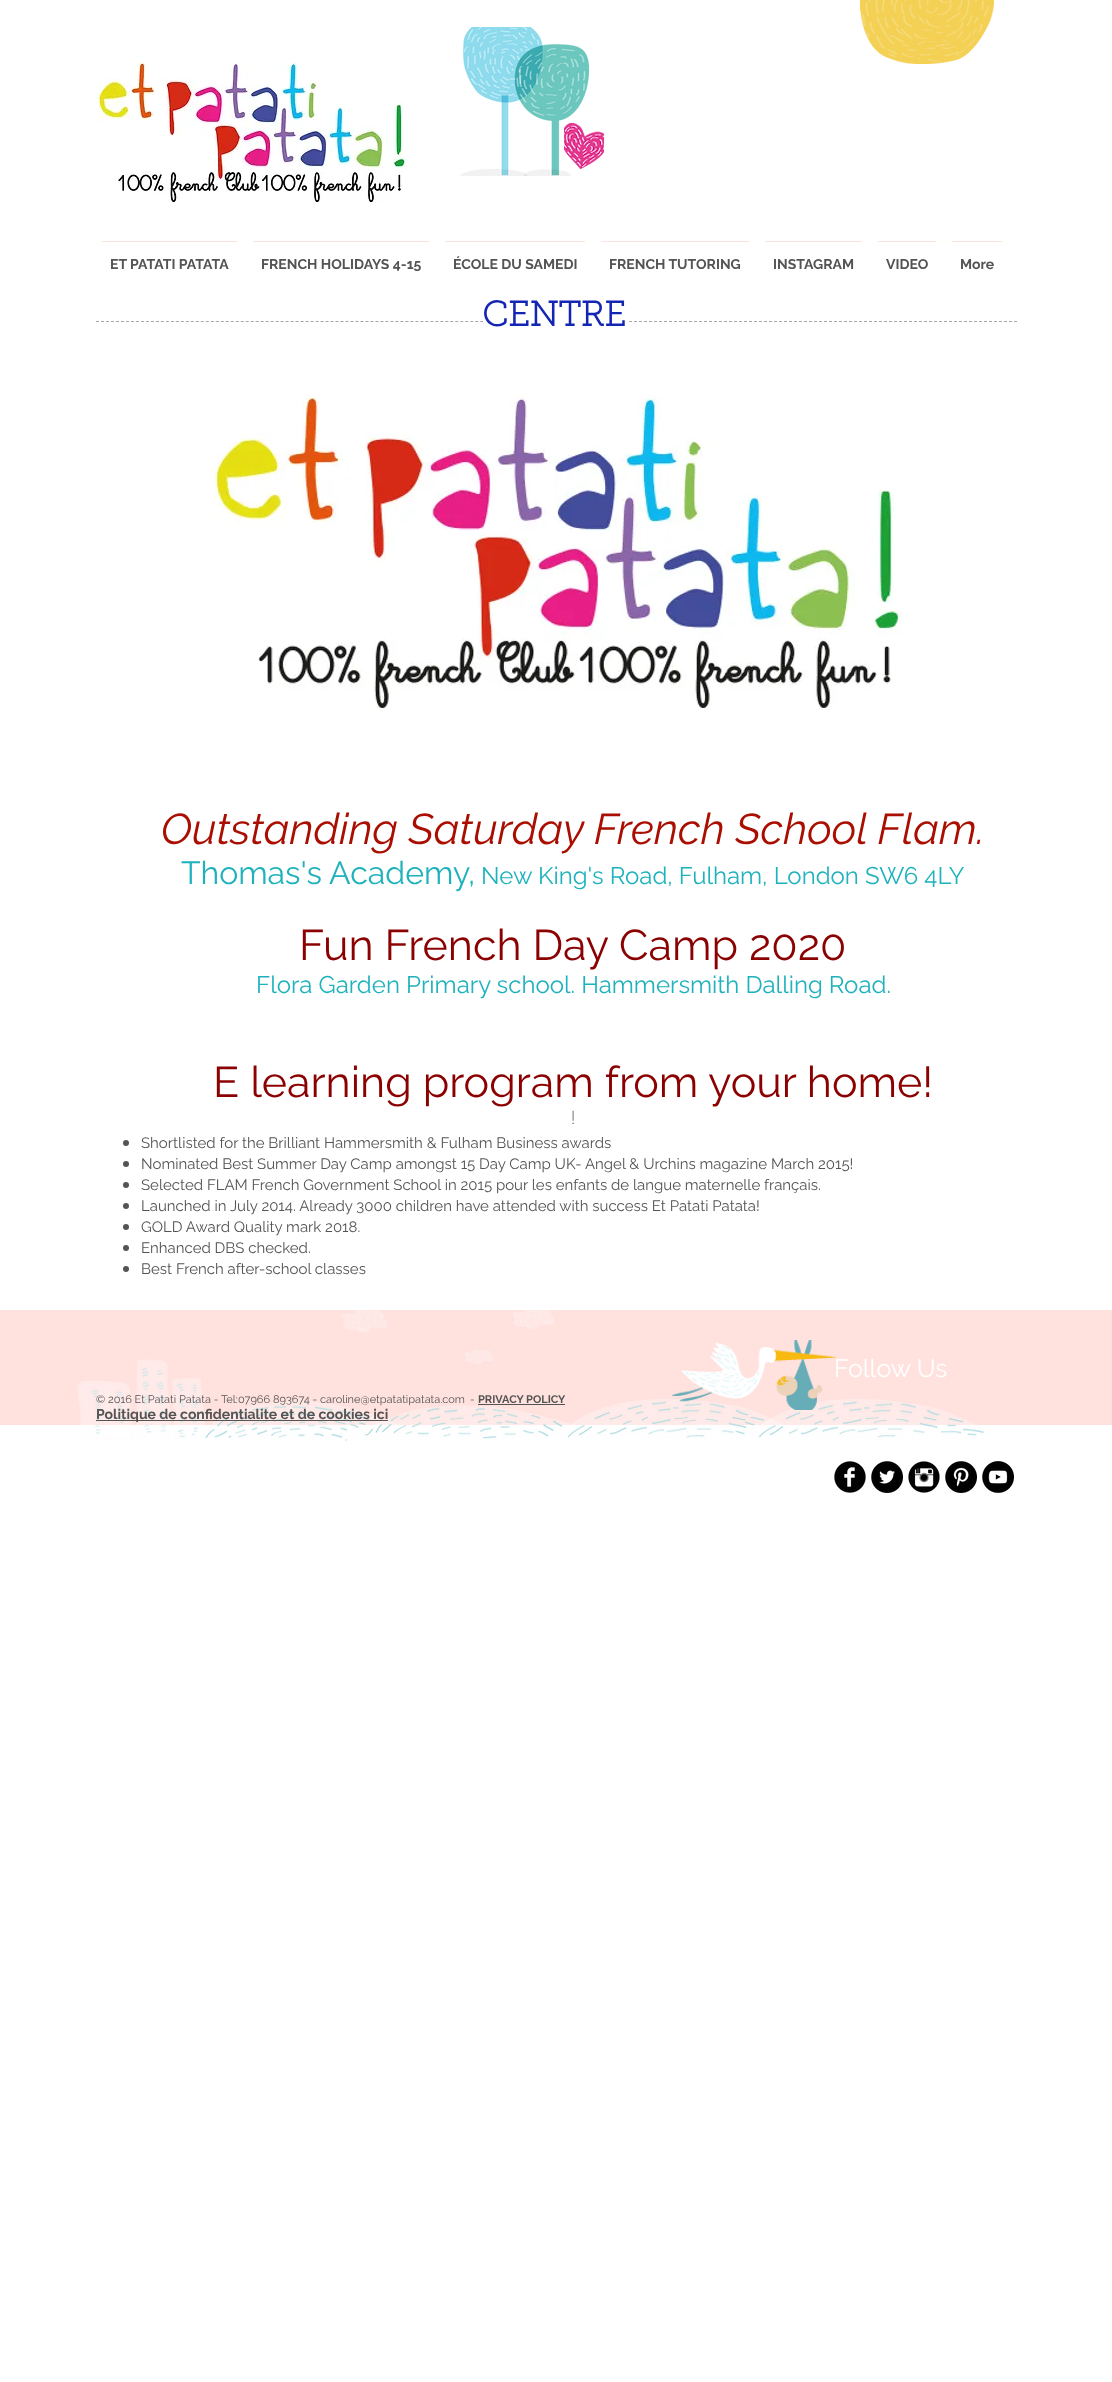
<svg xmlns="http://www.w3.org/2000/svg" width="1112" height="2382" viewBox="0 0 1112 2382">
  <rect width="100%" height="100%" fill="#ffffff"/>
  <image x="97" y="62" width="313" height="141" href="img1.png"/>
  <image x="460" y="27" width="129" height="149" href="img2.png"/>
  <image x="860" y="0" width="134" height="64" href="img3.png"/>
  <image x="564" y="123" width="40" height="46" href="img4.png"/>
  <rect x="102" y="241" width="135" height="1" fill="#ffe1de"/>
  <text x="110" y="269" font-family="Raleway" font-size="14" font-weight="bold" fill="#545454">ET PATATI PATATA</text>
  <rect x="253" y="241" width="176" height="1" fill="#ffe1de"/>
  <text x="261" y="269" font-family="Raleway" font-size="14" font-weight="bold" fill="#545454">FRENCH HOLIDAYS 4-15</text>
  <rect x="445" y="241" width="140" height="1" fill="#ffe1de"/>
  <text x="453" y="269" font-family="Raleway" font-size="14" font-weight="bold" fill="#545454">ÉCOLE DU SAMEDI</text>
  <rect x="601" y="241" width="148" height="1" fill="#ffe1de"/>
  <text x="609" y="269" font-family="Raleway" font-size="14" font-weight="bold" fill="#545454">FRENCH TUTORING</text>
  <rect x="765" y="241" width="97" height="1" fill="#ffe1de"/>
  <text x="773" y="269" font-family="Raleway" font-size="14" font-weight="bold" fill="#545454">INSTAGRAM</text>
  <rect x="878" y="241" width="58" height="1" fill="#ffe1de"/>
  <text x="886" y="269" font-family="Raleway" font-size="14" font-weight="bold" fill="#545454">VIDEO</text>
  <rect x="952" y="241" width="50" height="1" fill="#ffe1de"/>
  <text x="960" y="269" font-family="Raleway" font-size="14" font-weight="bold" fill="#545454">More</text>
  <path d="M96 321.5H483" fill="none" stroke="#a6a6a6" stroke-dasharray="3 1.99"/>
  <text x="482" y="326" font-family="'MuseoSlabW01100'" font-size="35" font-weight="bold" fill="#1225b3">CENTRE</text>
  <path d="M629 321.5H1017" fill="none" stroke="#a6a6a6" stroke-dasharray="3 2"/>
  <image x="214" y="394" width="688" height="316" href="img5.png"/>
  <text x="161" y="844" font-family="Raleway" font-size="43" font-style="italic" fill="#a90e00">Outstanding Saturday French School Flam.</text>
  <text x="181" y="884" font-family="Raleway" font-size="32" fill="#1eb2bc">Thomas's Academy,</text>
  <text x="481" y="884" font-family="Raleway" font-size="24" fill="#1eb2bc">New King's Road, Fulham, London SW6 4LY</text>
  <text x="299" y="960" font-family="Raleway" font-size="43" fill="#8b0000">Fun French Day Camp 2020</text>
  <text x="256" y="993" font-family="Raleway" font-size="24" fill="#1eb2bc">Flora Garden Primary school. Hammersmith Dalling Road.</text>
  <text x="213" y="1097" font-family="Raleway" font-size="43" fill="#8b0000">E learning program from your home!</text>
  <text x="571" y="1124" font-family="'MuseoSlabW01100'" font-size="19" font-weight="100" fill="#545454">!</text>
  <circle cx="126" cy="1143" r="3" fill="#545454"/>
  <text x="141" y="1148" font-family="Raleway" font-size="15" fill="#545454">Shortlisted for the Brilliant Hammersmith &amp; Fulham Business awards</text>
  <circle cx="126" cy="1164" r="3" fill="#545454"/>
  <text x="141" y="1169" font-family="Raleway" font-size="15" fill="#545454">Nominated Best Summer Day Camp amongst 15 Day Camp UK- Angel &amp; Urchins magazine March 2015!</text>
  <circle cx="126" cy="1185" r="3" fill="#545454"/>
  <text x="141" y="1190" font-family="Raleway" font-size="15" fill="#545454">Selected FLAM French Government School in 2015 pour les enfants de langue maternelle français.</text>
  <circle cx="126" cy="1206" r="3" fill="#545454"/>
  <text x="141" y="1211" font-family="Raleway" font-size="15" fill="#545454">Launched in July 2014. Already 3000 children have attended with success Et Patati Patata!</text>
  <circle cx="126" cy="1227" r="3" fill="#545454"/>
  <text x="141" y="1232" font-family="Raleway" font-size="15" fill="#545454">GOLD Award Quality mark 2018.</text>
  <circle cx="126" cy="1248" r="3" fill="#545454"/>
  <text x="141" y="1253" font-family="Raleway" font-size="15" fill="#545454">Enhanced DBS checked.</text>
  <circle cx="126" cy="1269" r="3" fill="#545454"/>
  <text x="141" y="1274" font-family="Raleway" font-size="15" fill="#545454">Best French after-school classes</text>
  <rect x="0" y="1310" width="1112" height="115" fill="#ffe1de"/>
  <image x="77" y="1310" width="907" height="131" href="img6.png"/>
  <image x="672" y="1340" width="164" height="70" href="img7.png"/>
  <text x="834" y="1377" font-family="Raleway" font-size="25" fill="#ffffff">Follow Us</text>
  <text x="96" y="1403" font-family="Raleway" font-size="11" fill="#545454">© 2016 Et Patati Patata - Tel:07966 893674 - caroline@etpatatipatata.com</text>
  <text x="470" y="1403" font-family="Raleway" font-size="11" fill="#545454">-</text>
  <text x="478" y="1403" font-family="Raleway" font-size="11" font-weight="bold" fill="#545454">PRIVACY POLICY</text>
  <rect x="478" y="1404" width="87" height="1" fill="#545454"/>
  <rect x="96" y="1420" width="292" height="1" fill="#545454"/>
  <text x="96" y="1419" font-family="Raleway" font-size="14" font-weight="bold" fill="#545454">Politique de confidentialite et de cookies ici</text>
  <image x="834" y="1461" width="32" height="32" href="img8.png"/>
  <image x="871" y="1461" width="32" height="32" href="img9.png"/>
  <image x="908" y="1461" width="32" height="32" href="img10.png"/>
  <image x="945" y="1461" width="32" height="32" href="img11.png"/>
  <image x="982" y="1461" width="32" height="32" href="img12.png"/>
</svg>
